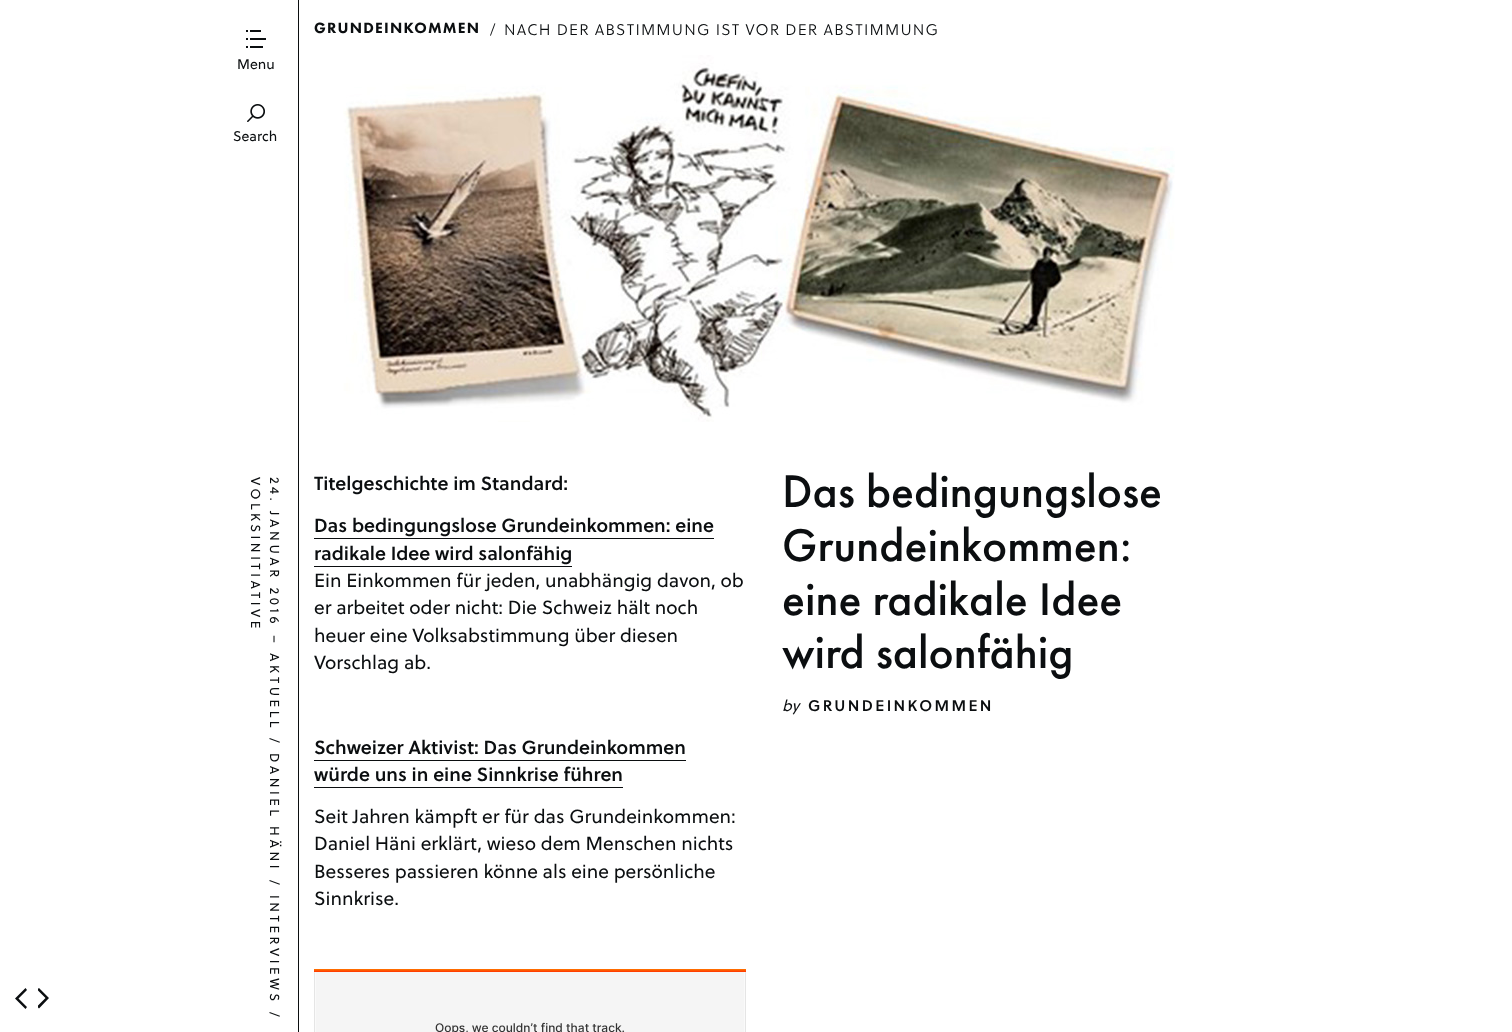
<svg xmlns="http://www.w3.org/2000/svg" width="1512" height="1032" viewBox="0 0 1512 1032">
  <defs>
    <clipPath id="clip1"><rect x="38" y="988" width="12" height="21"/></clipPath>
  </defs>
  <rect width="100%" height="100%" fill="#ffffff"/>
  <rect x="298" y="0" width="1" height="1032" fill="#0b0e10"/>
  <text x="314" y="33" font-family="Futura PT" font-size="15.45" font-weight="900" letter-spacing="1.2" fill="#0b0e10">GRUNDEINKOMMEN</text>
  <text x="490" y="35" font-family="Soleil" font-size="15.45" font-weight="300" letter-spacing="1.2" fill="#0b0e10">/</text>
  <text x="504" y="35" font-family="Soleil" font-size="15.45" font-weight="300" letter-spacing="1.2" fill="#0b0e10">NACH DER ABSTIMMUNG IST VOR DER ABSTIMMUNG</text>
  <image x="246" y="30" width="20" height="18" href="img1.png"/>
  <text x="237" y="69" font-family="Soleil" font-size="14" fill="#0b0e10">Menu</text>
  <image x="247" y="104" width="18" height="18" href="img2.png"/>
  <text x="233" y="141" font-family="Soleil" font-size="14" fill="#0b0e10">Search</text>
  <image x="343" y="55" width="832" height="367" href="img3.png"/>
  <path d="M27 990L25.5 988L15 998.5L25.5 1009L27 1007L18.5 998.5Z" fill="#0b0e10"/>
  <g clip-path="url(#clip1)">
    <path d="M37 1006.5L39 1008.5L49 998L39 988L37 989.5L45.5 998Z" fill="#0b0e10"/>
  </g>
  <text x="251" y="477" transform="rotate(90 251 477)" font-family="Soleil" font-size="13" letter-spacing="3.5" fill="#0b0e10">VOLKSINITIATIVE</text>
  <text x="270" y="477" transform="rotate(90 270 477)" font-family="Soleil" font-size="13" letter-spacing="3.5" fill="#0b0e10">24. JANUAR 2016</text>
  <text x="270" y="635" transform="rotate(90 270 635)" font-family="Soleil" font-size="13" letter-spacing="3.5" fill="#0b0e10">–</text>
  <text x="270" y="653" transform="rotate(90 270 653)" font-family="Soleil" font-size="13" letter-spacing="3.5" fill="#0b0e10">AKTUELL</text>
  <text x="270" y="738" transform="rotate(90 270 738)" font-family="Soleil" font-size="13" letter-spacing="3.5" fill="#0b0e10">/</text>
  <text x="270" y="753" transform="rotate(90 270 753)" font-family="Soleil" font-size="13" letter-spacing="3.5" fill="#0b0e10">DANIEL HÄNI</text>
  <text x="270" y="880" transform="rotate(90 270 880)" font-family="Soleil" font-size="13" letter-spacing="3.5" fill="#0b0e10">/</text>
  <text x="270" y="895" transform="rotate(90 270 895)" font-family="Soleil" font-size="13" letter-spacing="3.5" fill="#0b0e10">INTERVIEWS</text>
  <text x="270" y="1012" transform="rotate(90 270 1012)" font-family="Soleil" font-size="13" letter-spacing="3.5" fill="#0b0e10">/</text>
  <text x="314" y="490" font-family="Soleil" font-size="19" font-weight="600" fill="#0b0e10">Titelgeschichte im Standard:</text>
  <text x="782" y="507" font-family="Futura PT" font-size="47.5" font-weight="500" fill="#0b0e10">Das bedingungslose</text>
  <text x="782" y="561" font-family="Futura PT" font-size="47.5" font-weight="500" fill="#0b0e10">Grundeinkommen:</text>
  <text x="782" y="615" font-family="Futura PT" font-size="47.5" font-weight="500" fill="#0b0e10">eine radikale Idee</text>
  <text x="782" y="668" font-family="Futura PT" font-size="47.5" font-weight="500" fill="#0b0e10">wird salonfähig</text>
  <text x="782" y="711" font-family="Soleil" font-size="15.45" font-style="italic" fill="#0b0e10">by</text>
  <text x="808" y="711" font-family="Soleil" font-size="15.45" font-weight="600" letter-spacing="2.4" fill="#0b0e10">GRUNDEINKOMMEN</text>
  <text x="314" y="532" font-family="Soleil" font-size="19" font-weight="600" fill="#0b0e10">Das bedingungslose Grundeinkommen: eine</text>
  <rect x="314" y="538" width="400" height="1" fill="#0b0e10"/>
  <text x="314" y="560" font-family="Soleil" font-size="19" font-weight="600" fill="#0b0e10">radikale Idee wird salonfähig</text>
  <rect x="314" y="566" width="258" height="1" fill="#0b0e10"/>
  <text x="314" y="587" font-family="Soleil" font-size="19" fill="#0b0e10">Ein Einkommen für jeden, unabhängig davon, ob</text>
  <text x="314" y="614" font-family="Soleil" font-size="19" fill="#0b0e10">er arbeitet oder nicht: Die Schweiz hält noch</text>
  <text x="314" y="642" font-family="Soleil" font-size="19" fill="#0b0e10">heuer eine Volksabstimmung über diesen</text>
  <text x="314" y="669" font-family="Soleil" font-size="19" fill="#0b0e10">Vorschlag ab.</text>
  <text x="314" y="754" font-family="Soleil" font-size="19" font-weight="600" fill="#0b0e10">Schweizer Aktivist: Das Grundeinkommen</text>
  <rect x="314" y="760" width="372" height="1" fill="#0b0e10"/>
  <text x="314" y="781" font-family="Soleil" font-size="19" font-weight="600" fill="#0b0e10">würde uns in eine Sinnkrise führen</text>
  <rect x="314" y="787" width="309" height="1" fill="#0b0e10"/>
  <text x="314" y="823" font-family="Soleil" font-size="19" fill="#0b0e10">Seit Jahren kämpft er für das Grundeinkommen:</text>
  <text x="314" y="850" font-family="Soleil" font-size="19" fill="#0b0e10">Daniel Häni erklärt, wieso dem Menschen nichts</text>
  <text x="314" y="878" font-family="Soleil" font-size="19" fill="#0b0e10">Besseres passieren könne als eine persönliche</text>
  <text x="314" y="905" font-family="Soleil" font-size="19" fill="#0b0e10">Sinnkrise.</text>
  <image x="314" y="969" width="432" height="63" href="img4.png"/>
</svg>
